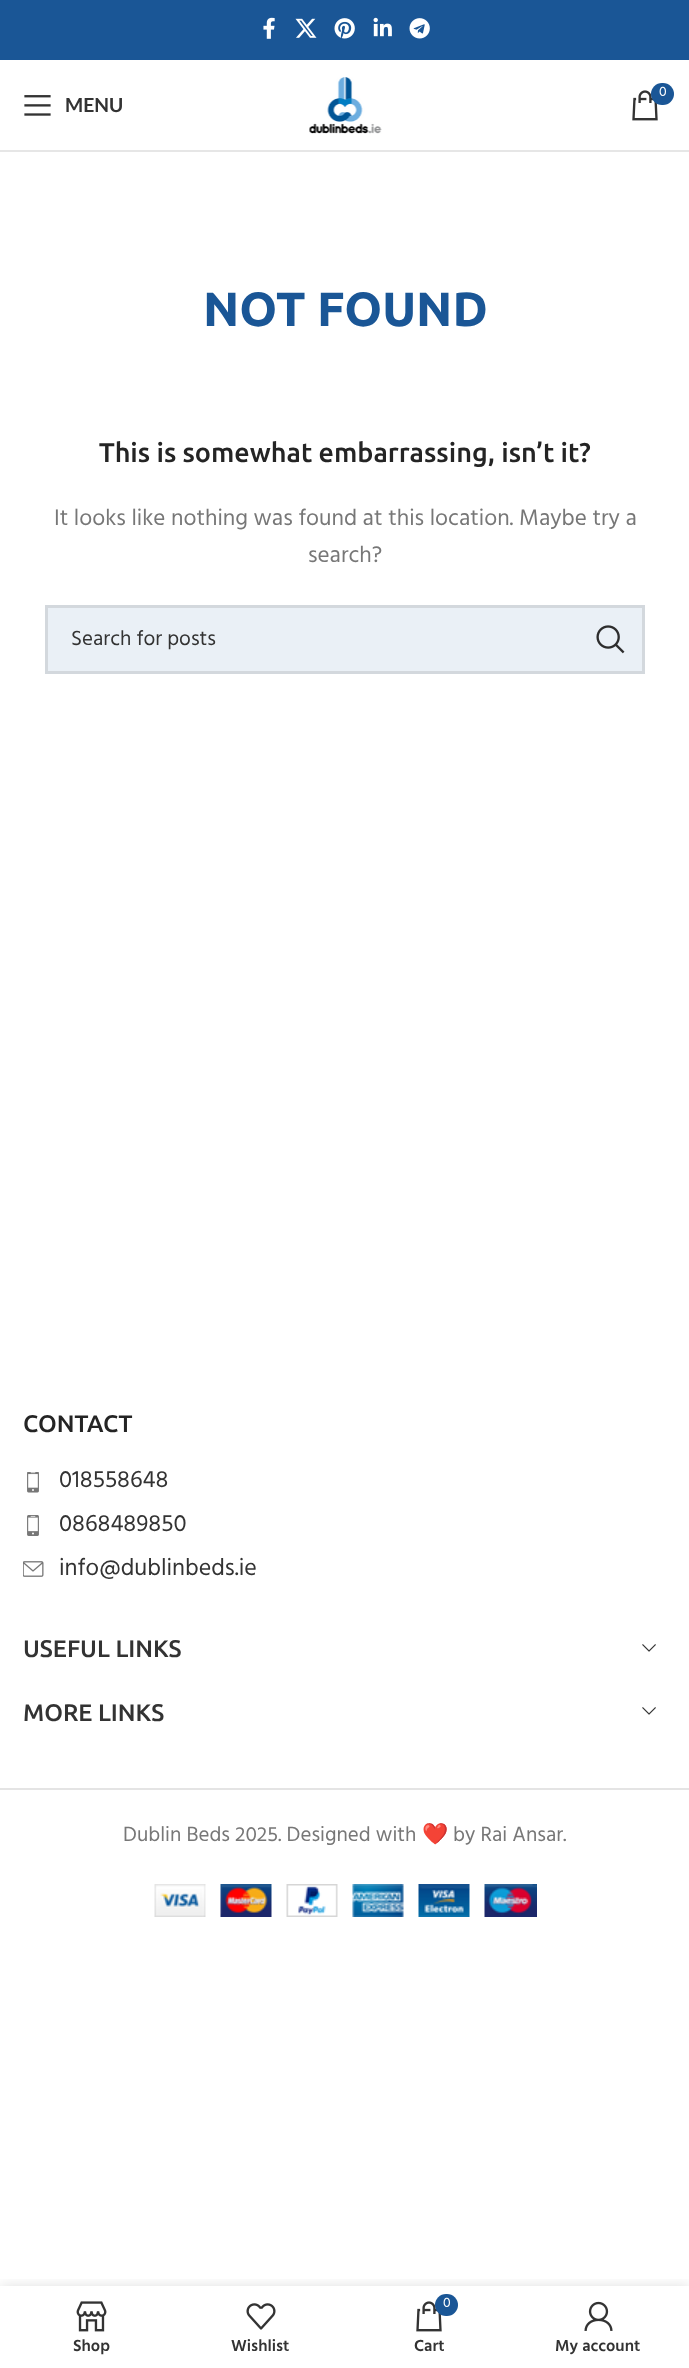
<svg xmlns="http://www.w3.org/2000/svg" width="689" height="2368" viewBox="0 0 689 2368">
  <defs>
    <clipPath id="clip1"><rect x="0" y="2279" width="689" height="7"/></clipPath>
    <filter id="blur1" x="-50%" y="-200%" width="200%" height="500%"><feGaussianBlur stdDeviation="7"/></filter>
  </defs>
  <rect width="100%" height="100%" fill="#ffffff"/>
  <rect x="0" y="0" width="689" height="60" fill="#1a5696"/>
  <image x="263" y="17" width="12" height="22" href="img1.png"/>
  <image x="295" y="18" width="22" height="20" href="img2.png"/>
  <image x="334" y="18" width="21" height="21" href="img3.png"/>
  <image x="373" y="17" width="19" height="20" href="img4.png"/>
  <image x="409" y="18" width="21" height="21" href="img5.png"/>
  <rect x="0" y="150" width="689" height="2" fill="#e6e6e6"/>
  <image x="309" y="77" width="73" height="57" href="img6.png"/>
  <image x="632" y="90" width="26" height="31" href="img7.png"/>
  <rect x="651" y="83" width="23" height="22" rx="11" fill="#1a5696"/>
  <text x="659" y="96" font-family="Hind" font-size="14" fill="#ffffff">0</text>
  <image x="24" y="95" width="27" height="21" href="img8.png"/>
  <text x="65" y="112" font-family="Lato" font-size="19.5" font-weight="bold" fill="#333333">MENU</text>
  <text x="203" y="326" font-family="Ubuntu" font-size="48" font-weight="bold" fill="#1a5696">NOT FOUND</text>
  <text x="99" y="462" font-family="Ubuntu" font-size="27" font-weight="500" fill="#242424">This is somewhat embarrassing, isn’t it?</text>
  <text x="54" y="525" font-family="Hind" font-size="23.1" fill="#777777">It looks like nothing was found at this location. Maybe try a</text>
  <text x="308" y="562" font-family="Hind" font-size="23.1" fill="#777777">search?</text>
  <rect x="46.5" y="606.5" width="597" height="66" fill="#eaf0f6" stroke="#d3d8dd" stroke-width="3"/>
  <text x="71" y="645" font-family="Hind" font-size="21" fill="#333333">Search for posts</text>
  <image x="596" y="625" width="29" height="29" href="img9.png"/>
  <text x="23" y="1432" font-family="Ubuntu" font-size="24" font-weight="500" fill="#242424">CONTACT</text>
  <image x="27" y="1472" width="12" height="21" href="img10.png"/>
  <text x="59" y="1487" font-family="Hind" font-size="24" fill="#333333">018558648</text>
  <image x="27" y="1515" width="12" height="21" href="img11.png"/>
  <text x="59" y="1531" font-family="Hind" font-size="24" fill="#333333">0868489850</text>
  <image x="23" y="1561" width="21" height="16" href="img12.png"/>
  <text x="59" y="1575" font-family="Hind" font-size="24" fill="#333333">info@dublinbeds.ie</text>
  <text x="23" y="1657" font-family="Ubuntu" font-size="24" font-weight="500" fill="#333333">USEFUL LINKS</text>
  <image x="642" y="1644" width="14" height="8" href="img13.png"/>
  <text x="23" y="1721" font-family="Ubuntu" font-size="24" font-weight="500" fill="#333333">MORE LINKS</text>
  <image x="642" y="1707" width="14" height="8" href="img13.png"/>
  <rect x="0" y="1788" width="689" height="2" fill="#e4e4e4"/>
  <text x="123" y="1841" font-family="Hind" font-size="21" fill="#777777">Dublin Beds 2025. Designed with</text>
  <text x="422" y="1841" font-family="Noto Color Emoji" font-size="21" fill="#777777">❤️</text>
  <text x="453" y="1841" font-family="Hind" font-size="21" fill="#777777">by Rai Ansar.</text>
  <image x="154" y="1884" width="383" height="33" href="img14.png"/>
  <g clip-path="url(#clip1)">
    <rect x="0" y="2286" width="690" height="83" fill="#000000" fill-opacity="0.12" filter="url(#blur1)"/>
  </g>
  <image x="76" y="2301" width="31" height="31" href="img15.png"/>
  <text x="73" y="2351" font-family="Hind" font-size="16.5" font-weight="600" fill="#333333">Shop</text>
  <image x="246" y="2303" width="30" height="27" href="img16.png"/>
  <text x="231" y="2351" font-family="Hind" font-size="16.5" font-weight="600" fill="#333333">Wishlist</text>
  <image x="416" y="2301" width="26" height="31" href="img7.png"/>
  <rect x="435" y="2294" width="23" height="22" rx="11" fill="#1a5696"/>
  <text x="443" y="2307" font-family="Hind" font-size="14" fill="#ffffff">0</text>
  <text x="414" y="2351" font-family="Hind" font-size="16.5" font-weight="600" fill="#333333">Cart</text>
  <image x="584" y="2301" width="29" height="30" href="img17.png"/>
  <text x="555" y="2351" font-family="Hind" font-size="16.5" font-weight="600" fill="#333333">My account</text>
</svg>
